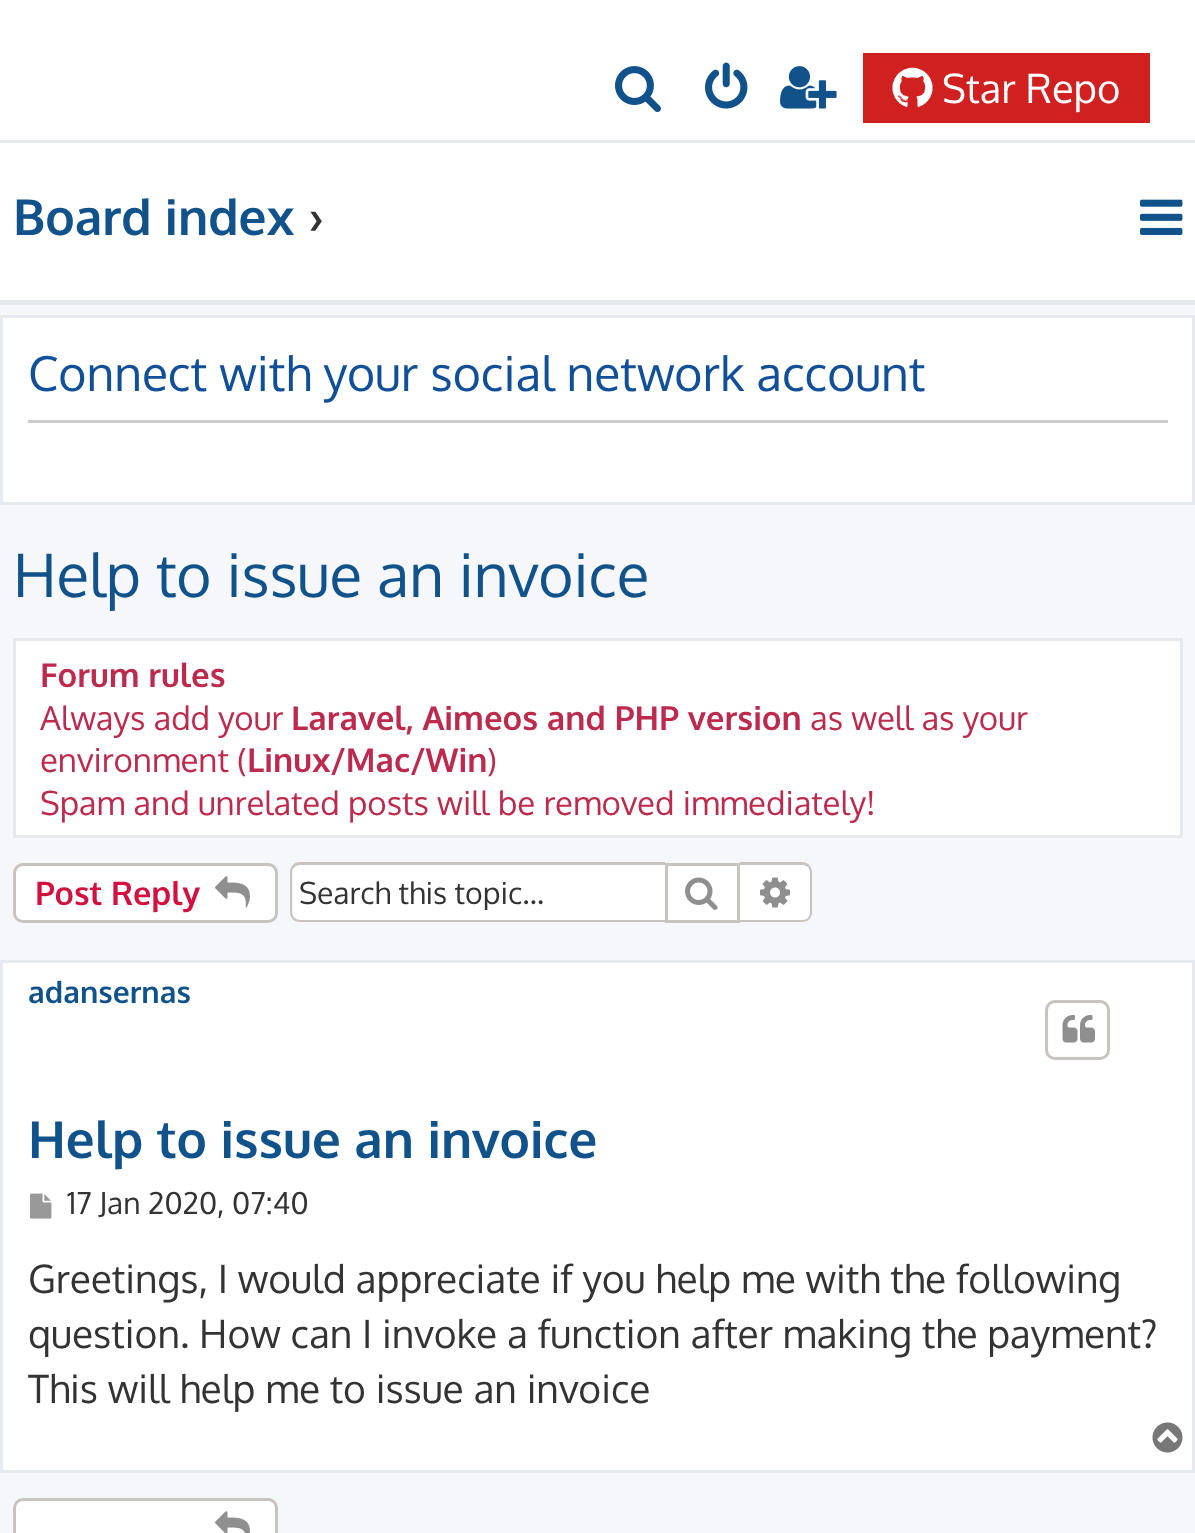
<svg xmlns="http://www.w3.org/2000/svg" width="1195" height="1533" viewBox="0 0 1195 1533">
  <defs>
    <clipPath id="clip1"><rect x="300" y="873" width="348" height="37"/></clipPath>
    <clipPath id="clip2"><rect x="28" y="1253" width="1140" height="167"/></clipPath>
  </defs>
  <rect width="100%" height="100%" fill="#f5f7fa"/>
  <rect x="0" y="0" width="1195" height="140" fill="#ffffff"/>
  <rect x="0" y="140" width="1195" height="3" fill="#e6e9ed"/>
  <image x="615" y="66" width="46" height="47" href="img1.png"/>
  <image x="705" y="62" width="43" height="47" href="img2.png"/>
  <image x="780" y="66" width="57" height="43" href="img3.png"/>
  <rect x="863" y="53" width="287" height="70" fill="#d02020"/>
  <image x="892" y="67" width="41" height="40" href="img4.png"/>
  <text x="942" y="103" font-family="Oxygen" font-size="40" fill="#ffffff">Star Repo</text>
  <rect x="0" y="143" width="1195" height="157" fill="#ffffff"/>
  <rect x="0" y="300" width="1195" height="5" fill="#e6e9ed"/>
  <text x="13" y="235" font-family="Oxygen" font-size="49.5" font-weight="bold" fill="#105289">Board index</text>
  <text x="309" y="235" font-family="Oxygen" font-size="49.5" font-weight="bold" fill="#333333">›</text>
  <image x="1140" y="199" width="43" height="36" href="img5.png"/>
  <rect x="1.5" y="316.5" width="1192" height="187" fill="#ffffff" stroke="#e6e9ed" stroke-width="3"/>
  <rect x="28" y="420" width="1140" height="3" fill="#cccccc"/>
  <text x="28" y="391" font-family="Oxygen" font-size="48" fill="#115098">Connect with your social network account</text>
  <text x="13" y="597" font-family="Oxygen" font-size="60" fill="#105289">Help to issue an invoice</text>
  <rect x="14.5" y="639.5" width="1167" height="197" fill="#ffffff" stroke="#e6e9ed" stroke-width="3"/>
  <text x="40" y="687" font-family="Oxygen" font-size="33" font-weight="bold" fill="#bc2a4d">Forum rules</text>
  <text x="40" y="730" font-family="Oxygen" font-size="33" fill="#bc2a4d">Always add your</text>
  <text x="291" y="730" font-family="Oxygen" font-size="33" font-weight="bold" fill="#bc2a4d">Laravel, Aimeos and PHP version</text>
  <text x="810" y="730" font-family="Oxygen" font-size="33" fill="#bc2a4d">as well as your</text>
  <text x="40" y="772" font-family="Oxygen" font-size="33" fill="#bc2a4d">environment (</text>
  <text x="247" y="772" font-family="Oxygen" font-size="33" font-weight="bold" fill="#bc2a4d">Linux/Mac/Win</text>
  <text x="487" y="772" font-family="Oxygen" font-size="33" fill="#bc2a4d">)</text>
  <text x="40" y="815" font-family="Oxygen" font-size="33" fill="#bc2a4d">Spam and unrelated posts will be removed immediately!</text>
  <rect x="14.5" y="864.5" width="262" height="57" rx="8.5" fill="#ffffff" stroke="#c7c3bf" stroke-width="3"/>
  <text x="35" y="905" font-family="Oxygen" font-size="32.5" font-weight="bold" fill="#d31141">Post Reply</text>
  <image x="215" y="876" width="35" height="32" href="img6.png"/>
  <path d="M301 865H665V920H301C296.5 920 293 916.5 293 912V873C293 868.5 296.5 865 301 865Z" fill="#ffffff"/>
  <path d="M300 862H665V922H300C294 922 290 918 290 912V872C290 867 294 862 300 862ZM300 865H665V920H300C296 920 292 917 292 912V872C292 868 296 865 300 865Z" fill="#c7c3bf" fill-rule="evenodd"/>
  <g clip-path="url(#clip1)">
    <text x="299" y="904" font-family="Oxygen" font-size="30.25" fill="#333333">Search this topic…</text>
  </g>
  <rect x="666.5" y="864.5" width="72" height="57" fill="#ffffff" stroke="#c7c3bf" stroke-width="3"/>
  <image x="685" y="877" width="33" height="33" href="img7.png"/>
  <path d="M740 865H802C806.5 865 810 868.5 810 873V912C810 916.5 806.5 920 802 920H740Z" fill="#ffffff"/>
  <path d="M740 862H802C808 862 812 867 812 872V912C812 918 808 922 802 922H740ZM740 865H802C807 865 810 868 810 872V912C810 917 807 920 802 920H740Z" fill="#c7c3bf" fill-rule="evenodd"/>
  <image x="760" y="877" width="30" height="31" href="img8.png"/>
  <rect x="1.5" y="961.5" width="1192" height="510" fill="#ffffff" stroke="#e6e9ed" stroke-width="3"/>
  <text x="28" y="1003" font-family="Oxygen" font-size="30" font-weight="bold" fill="#105289">adansernas</text>
  <rect x="1046.5" y="1001.5" width="62" height="57" rx="8.5" fill="none" stroke="#c7c3bf" stroke-width="3"/>
  <image x="1062" y="1015" width="33" height="28" href="img9.png"/>
  <text x="28" y="1158" font-family="Oxygen" font-size="51" font-weight="bold" fill="#105289">Help to issue an invoice</text>
  <image x="30" y="1193" width="22" height="26" href="img10.png"/>
  <text x="67" y="1214" font-family="Oxygen" font-size="30" fill="#333333">17 Jan 2020, 07:40</text>
  <text x="28" y="1293" font-family="Oxygen" font-size="39" fill="#333333">Greetings, I would appreciate if you help me with the following</text>
  <text x="28" y="1348" font-family="Oxygen" font-size="39" fill="#333333">question. How can I invoke a function after making the payment?</text>
  <g clip-path="url(#clip2)">
    <text x="28" y="1403" font-family="Oxygen" font-size="39" fill="#333333">This will help me to issue an invoice</text>
  </g>
  <image x="1152" y="1422" width="31" height="31" href="img11.png"/>
  <rect x="14.5" y="1499.5" width="262" height="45" rx="8.5" fill="#ffffff" stroke="#c7c3bf" stroke-width="3"/>
  <image x="215" y="1511" width="35" height="22" href="img12.png"/>
</svg>
